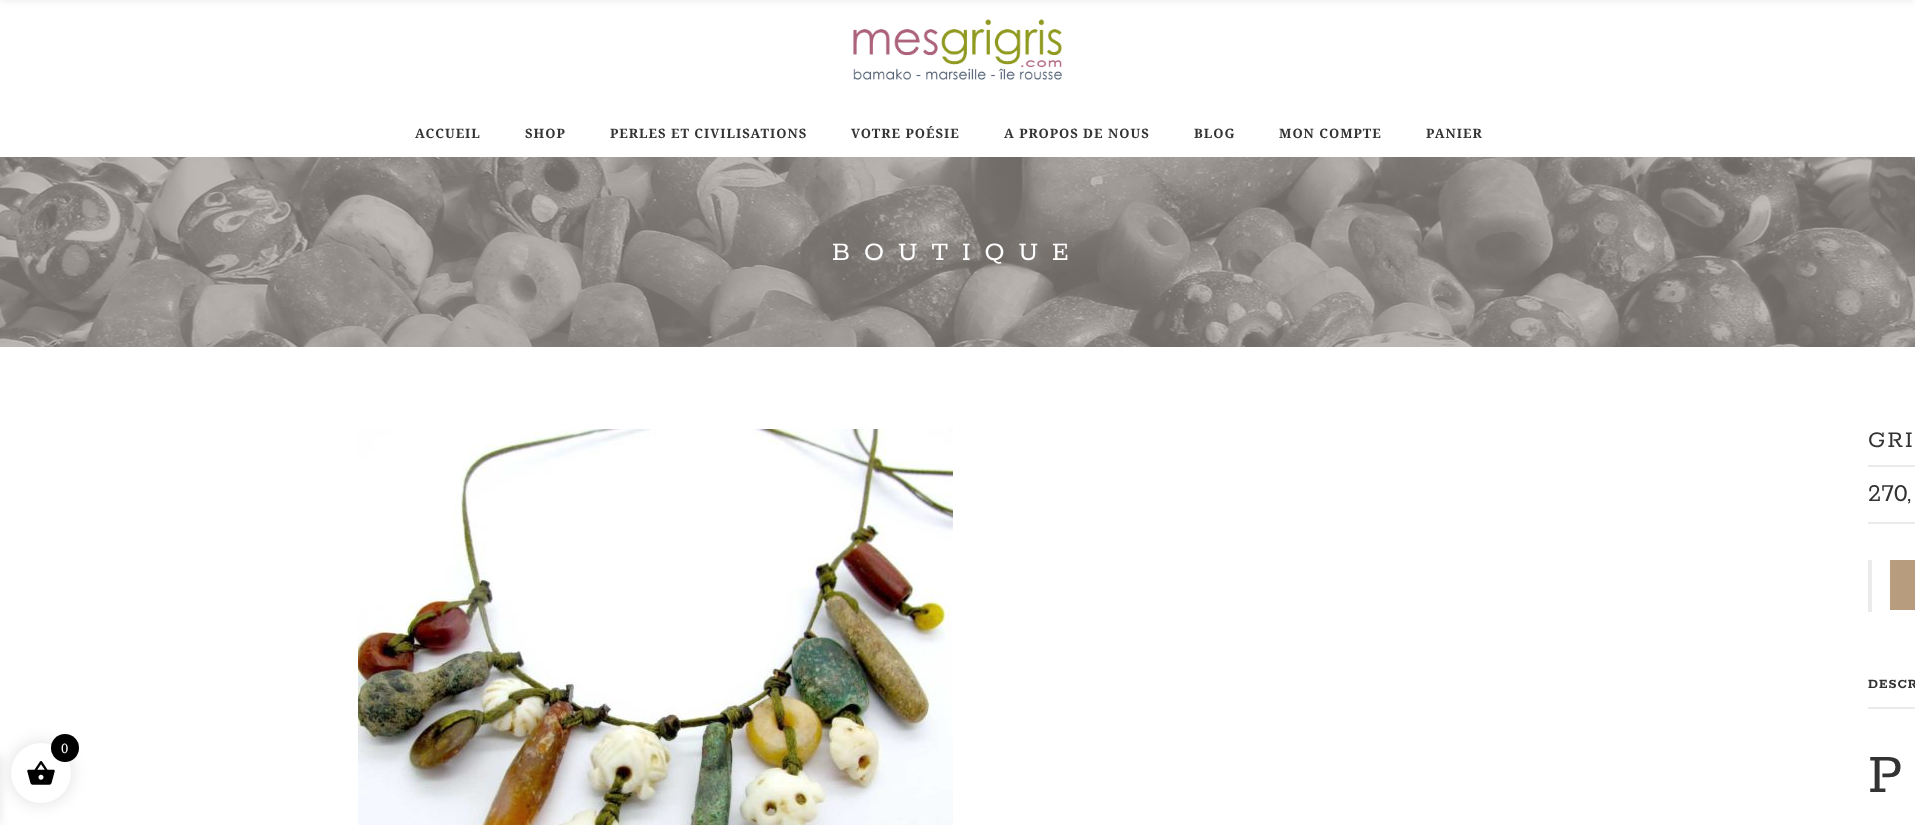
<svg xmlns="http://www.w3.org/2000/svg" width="1915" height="825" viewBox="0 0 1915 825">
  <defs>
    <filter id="blur1" x="-50%" y="-200%" width="200%" height="500%"><feGaussianBlur stdDeviation="5"/></filter>
    <filter id="blur2" x="-50%" y="-200%" width="200%" height="500%"><feGaussianBlur stdDeviation="7.5"/></filter>
    <filter id="blur3" x="-50%" y="-200%" width="200%" height="500%"><feGaussianBlur stdDeviation="4"/></filter>
  </defs>
  <rect width="100%" height="100%" fill="#ffffff"/>
  <rect x="-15" y="755" width="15" height="69" fill="#000000" fill-opacity="0.1" filter="url(#blur1)"/>
  <rect x="9" y="741" width="64" height="64" rx="32" fill="#000000" fill-opacity="0.1" filter="url(#blur2)"/>
  <circle cx="41" cy="773" r="30" fill="#ffffff"/>
  <image x="27" y="761" width="28" height="24" href="img1.png"/>
  <circle cx="65" cy="748" r="14" fill="#000000"/>
  <text x="61" y="753" font-family="Noto Serif" font-size="13" fill="#ffffff">0</text>
  <rect x="0" y="-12" width="1915" height="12" fill="#000000" fill-opacity="0.09" filter="url(#blur3)"/>
  <image x="853" y="19" width="209" height="61" href="img2.png"/>
  <text x="415" y="138" font-family="Noto Serif" font-size="13" font-weight="bold" letter-spacing="1" fill="#333333">ACCUEIL</text>
  <text x="525" y="138" font-family="Noto Serif" font-size="13" font-weight="bold" letter-spacing="1" fill="#333333">SHOP</text>
  <text x="610" y="138" font-family="Noto Serif" font-size="13" font-weight="bold" letter-spacing="1" fill="#333333">PERLES ET CIVILISATIONS</text>
  <text x="851" y="138" font-family="Noto Serif" font-size="13" font-weight="bold" letter-spacing="1" fill="#333333">VOTRE POÉSIE</text>
  <text x="1004" y="138" font-family="Noto Serif" font-size="13" font-weight="bold" letter-spacing="1" fill="#333333">A PROPOS DE NOUS</text>
  <text x="1194" y="138" font-family="Noto Serif" font-size="13" font-weight="bold" letter-spacing="1" fill="#333333">BLOG</text>
  <text x="1279" y="138" font-family="Noto Serif" font-size="13" font-weight="bold" letter-spacing="1" fill="#333333">MON COMPTE</text>
  <text x="1426" y="138" font-family="Noto Serif" font-size="13" font-weight="bold" letter-spacing="1" fill="#333333">PANIER</text>
  <image x="0" y="157" width="1915" height="190" href="img3.png"/>
  <text x="832" y="260" font-family="Rokkitt" font-size="28" letter-spacing="14" fill="#ffffff">BOUTIQUE</text>
  <image x="358" y="429" width="595" height="396" href="img4.png"/>
  <text x="1868" y="447" font-family="Rokkitt" font-size="25" letter-spacing="2" fill="#333333">GRI</text>
  <rect x="1868" y="465" width="47" height="2" fill="#ebebeb"/>
  <rect x="1868" y="522" width="47" height="2" fill="#ebebeb"/>
  <text x="1868" y="501" font-family="Rokkitt" font-size="27" fill="#333333">270,</text>
  <rect x="1868" y="560" width="4" height="52" fill="#ebebeb"/>
  <rect x="1890" y="560" width="25" height="50" fill="#b79c7d"/>
  <rect x="1868" y="707" width="47" height="2" fill="#ebebeb"/>
  <text x="1868" y="688" font-family="Rokkitt" font-size="14" font-weight="bold" letter-spacing="1" fill="#333333">DESCR</text>
  <text x="1868" y="792" font-family="Rokkitt" font-size="60" letter-spacing="2" fill="#333333">P</text>
</svg>
